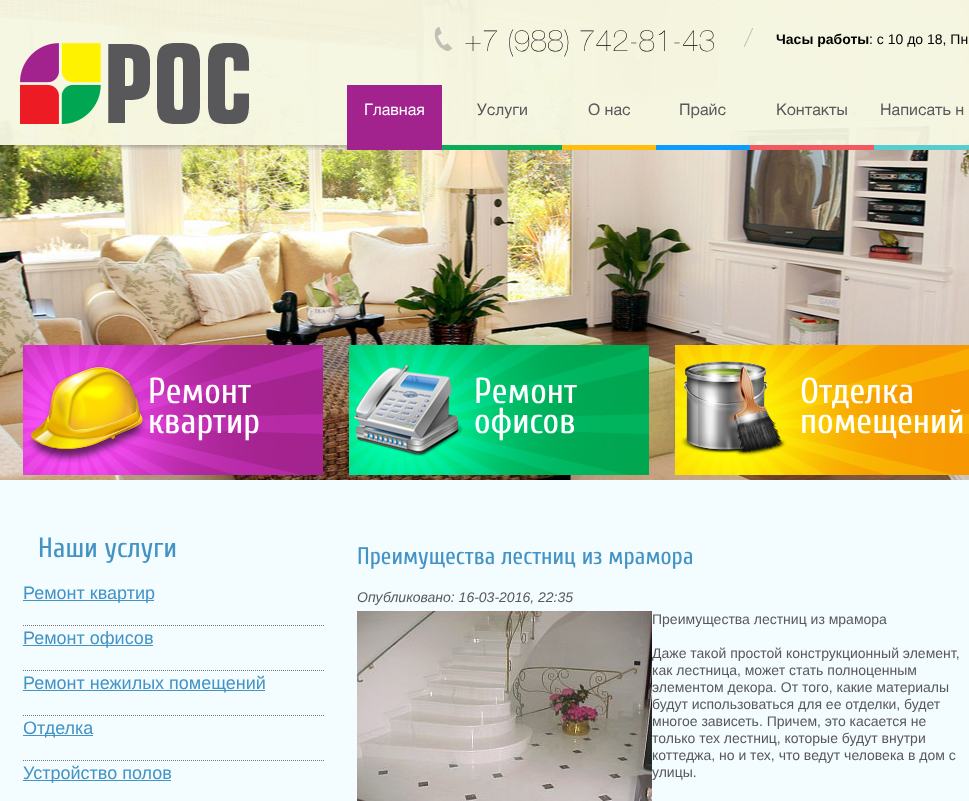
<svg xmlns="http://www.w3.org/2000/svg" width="969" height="801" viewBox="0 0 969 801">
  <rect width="100%" height="100%" fill="#f3fcff"/>
  <image x="0" y="0" width="969" height="480" href="img1.png"/>
  <image x="0" y="0" width="969" height="150" href="img2.png"/>
  <image x="20" y="43" width="229" height="81" href="img3.png"/>
  <image x="434" y="26" width="19" height="25" href="img4.png"/>
  <text x="464" y="51" font-family="'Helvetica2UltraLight'" font-size="30" font-weight="200" fill="#000000">+7 (988) 742-81-43</text>
  <image x="743" y="28" width="10" height="19" href="img5.png"/>
  <text x="776" y="44" font-family="Liberation Sans" font-size="14" font-weight="bold" fill="#000000">Часы работы</text>
  <text x="869" y="44" font-family="Liberation Sans" font-size="14" fill="#000000">: c 10 до 18, Пн</text>
  <image x="442" y="145" width="527" height="5" href="img6.png"/>
  <rect x="347" y="85" width="95" height="65" fill="#a3238e"/>
  <text x="364" y="115" font-family="'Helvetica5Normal'" font-size="16" fill="#ffffff">Главная</text>
  <text x="477" y="115" font-family="'Helvetica5Normal'" font-size="16" fill="#58585b">Услуги</text>
  <text x="588" y="115" font-family="'Helvetica5Normal'" font-size="16" fill="#58585b">О нас</text>
  <text x="679" y="115" font-family="'Helvetica5Normal'" font-size="16" fill="#58585b">Прайс</text>
  <text x="776" y="115" font-family="'Helvetica5Normal'" font-size="16" fill="#58585b">Контакты</text>
  <text x="880" y="115" font-family="'Helvetica5Normal'" font-size="16" fill="#58585b">Написать н</text>
  <image x="23" y="345" width="300" height="130" href="img7.png"/>
  <image x="28" y="365" width="118" height="98" href="img8.png"/>
  <text x="148" y="403" font-family="Cuprum" font-size="36" fill="#ffffff">Ремонт</text>
  <text x="148" y="433" font-family="Cuprum" font-size="36" fill="#ffffff">квартир</text>
  <image x="349" y="345" width="300" height="130" href="img9.png"/>
  <image x="354" y="365" width="109" height="91" href="img10.png"/>
  <text x="474" y="403" font-family="Cuprum" font-size="36" fill="#ffffff">Ремонт</text>
  <text x="474" y="433" font-family="Cuprum" font-size="36" fill="#ffffff">офисов</text>
  <image x="675" y="345" width="294" height="130" href="img11.png"/>
  <image x="681" y="361" width="105" height="95" href="img12.png"/>
  <text x="800" y="403" font-family="Cuprum" font-size="36" fill="#ffffff">Отделка</text>
  <text x="800" y="433" font-family="Cuprum" font-size="36" fill="#ffffff">помещений</text>
  <text x="38" y="557" font-family="Cuprum" font-size="28" fill="#4393c5">Наши услуги</text>
  <path d="M23 625.5H324" fill="none" stroke="#777777" stroke-dasharray="1 1"/>
  <rect x="23" y="600" width="131" height="1" fill="#4393c5"/>
  <text x="23" y="599" font-family="Liberation Sans" font-size="18" fill="#4393c5">Ремонт квартир</text>
  <path d="M23 670.5H324" fill="none" stroke="#777777" stroke-dasharray="1 1"/>
  <rect x="23" y="645" width="130" height="1" fill="#4393c5"/>
  <text x="23" y="644" font-family="Liberation Sans" font-size="18" fill="#4393c5">Ремонт офисов</text>
  <path d="M23 715.5H324" fill="none" stroke="#777777" stroke-dasharray="1 1"/>
  <rect x="23" y="690" width="242" height="1" fill="#4393c5"/>
  <text x="23" y="689" font-family="Liberation Sans" font-size="18" fill="#4393c5">Ремонт нежилых помещений</text>
  <path d="M23 760.5H324" fill="none" stroke="#777777" stroke-dasharray="1 1"/>
  <rect x="23" y="735" width="70" height="1" fill="#4393c5"/>
  <text x="23" y="734" font-family="Liberation Sans" font-size="18" fill="#4393c5">Отделка</text>
  <rect x="23" y="780" width="148" height="1" fill="#4393c5"/>
  <text x="23" y="779" font-family="Liberation Sans" font-size="18" fill="#4393c5">Устройство полов</text>
  <text x="357" y="564" font-family="Cuprum" font-size="24" fill="#4393c5">Преимущества лестниц из мрамора</text>
  <text x="357" y="602" font-family="Liberation Sans" font-size="14" font-style="italic" fill="#58585b">Опубликовано: 16-03-2016, 22:35</text>
  <image x="357" y="611" width="295" height="190" href="img13.png"/>
  <text x="652" y="624" font-family="Liberation Sans" font-size="14" fill="#58585b">Преимущества лестниц из мрамора</text>
  <text x="652" y="658" font-family="Liberation Sans" font-size="14" fill="#58585b">Даже такой простой конструкционный элемент,</text>
  <text x="652" y="675" font-family="Liberation Sans" font-size="14" fill="#58585b">как лестница, может стать полноценным</text>
  <text x="652" y="692" font-family="Liberation Sans" font-size="14" fill="#58585b">элементом декора. От того, какие материалы</text>
  <text x="652" y="709" font-family="Liberation Sans" font-size="14" fill="#58585b">будут использоваться для ее отделки, будет</text>
  <text x="652" y="726" font-family="Liberation Sans" font-size="14" fill="#58585b">многое зависеть. Причем, это касается не</text>
  <text x="652" y="743" font-family="Liberation Sans" font-size="14" fill="#58585b">только тех лестниц, которые будут внутри</text>
  <text x="652" y="760" font-family="Liberation Sans" font-size="14" fill="#58585b">коттеджа, но и тех, что ведут человека в дом с</text>
  <text x="652" y="777" font-family="Liberation Sans" font-size="14" fill="#58585b">улицы.</text>
</svg>
